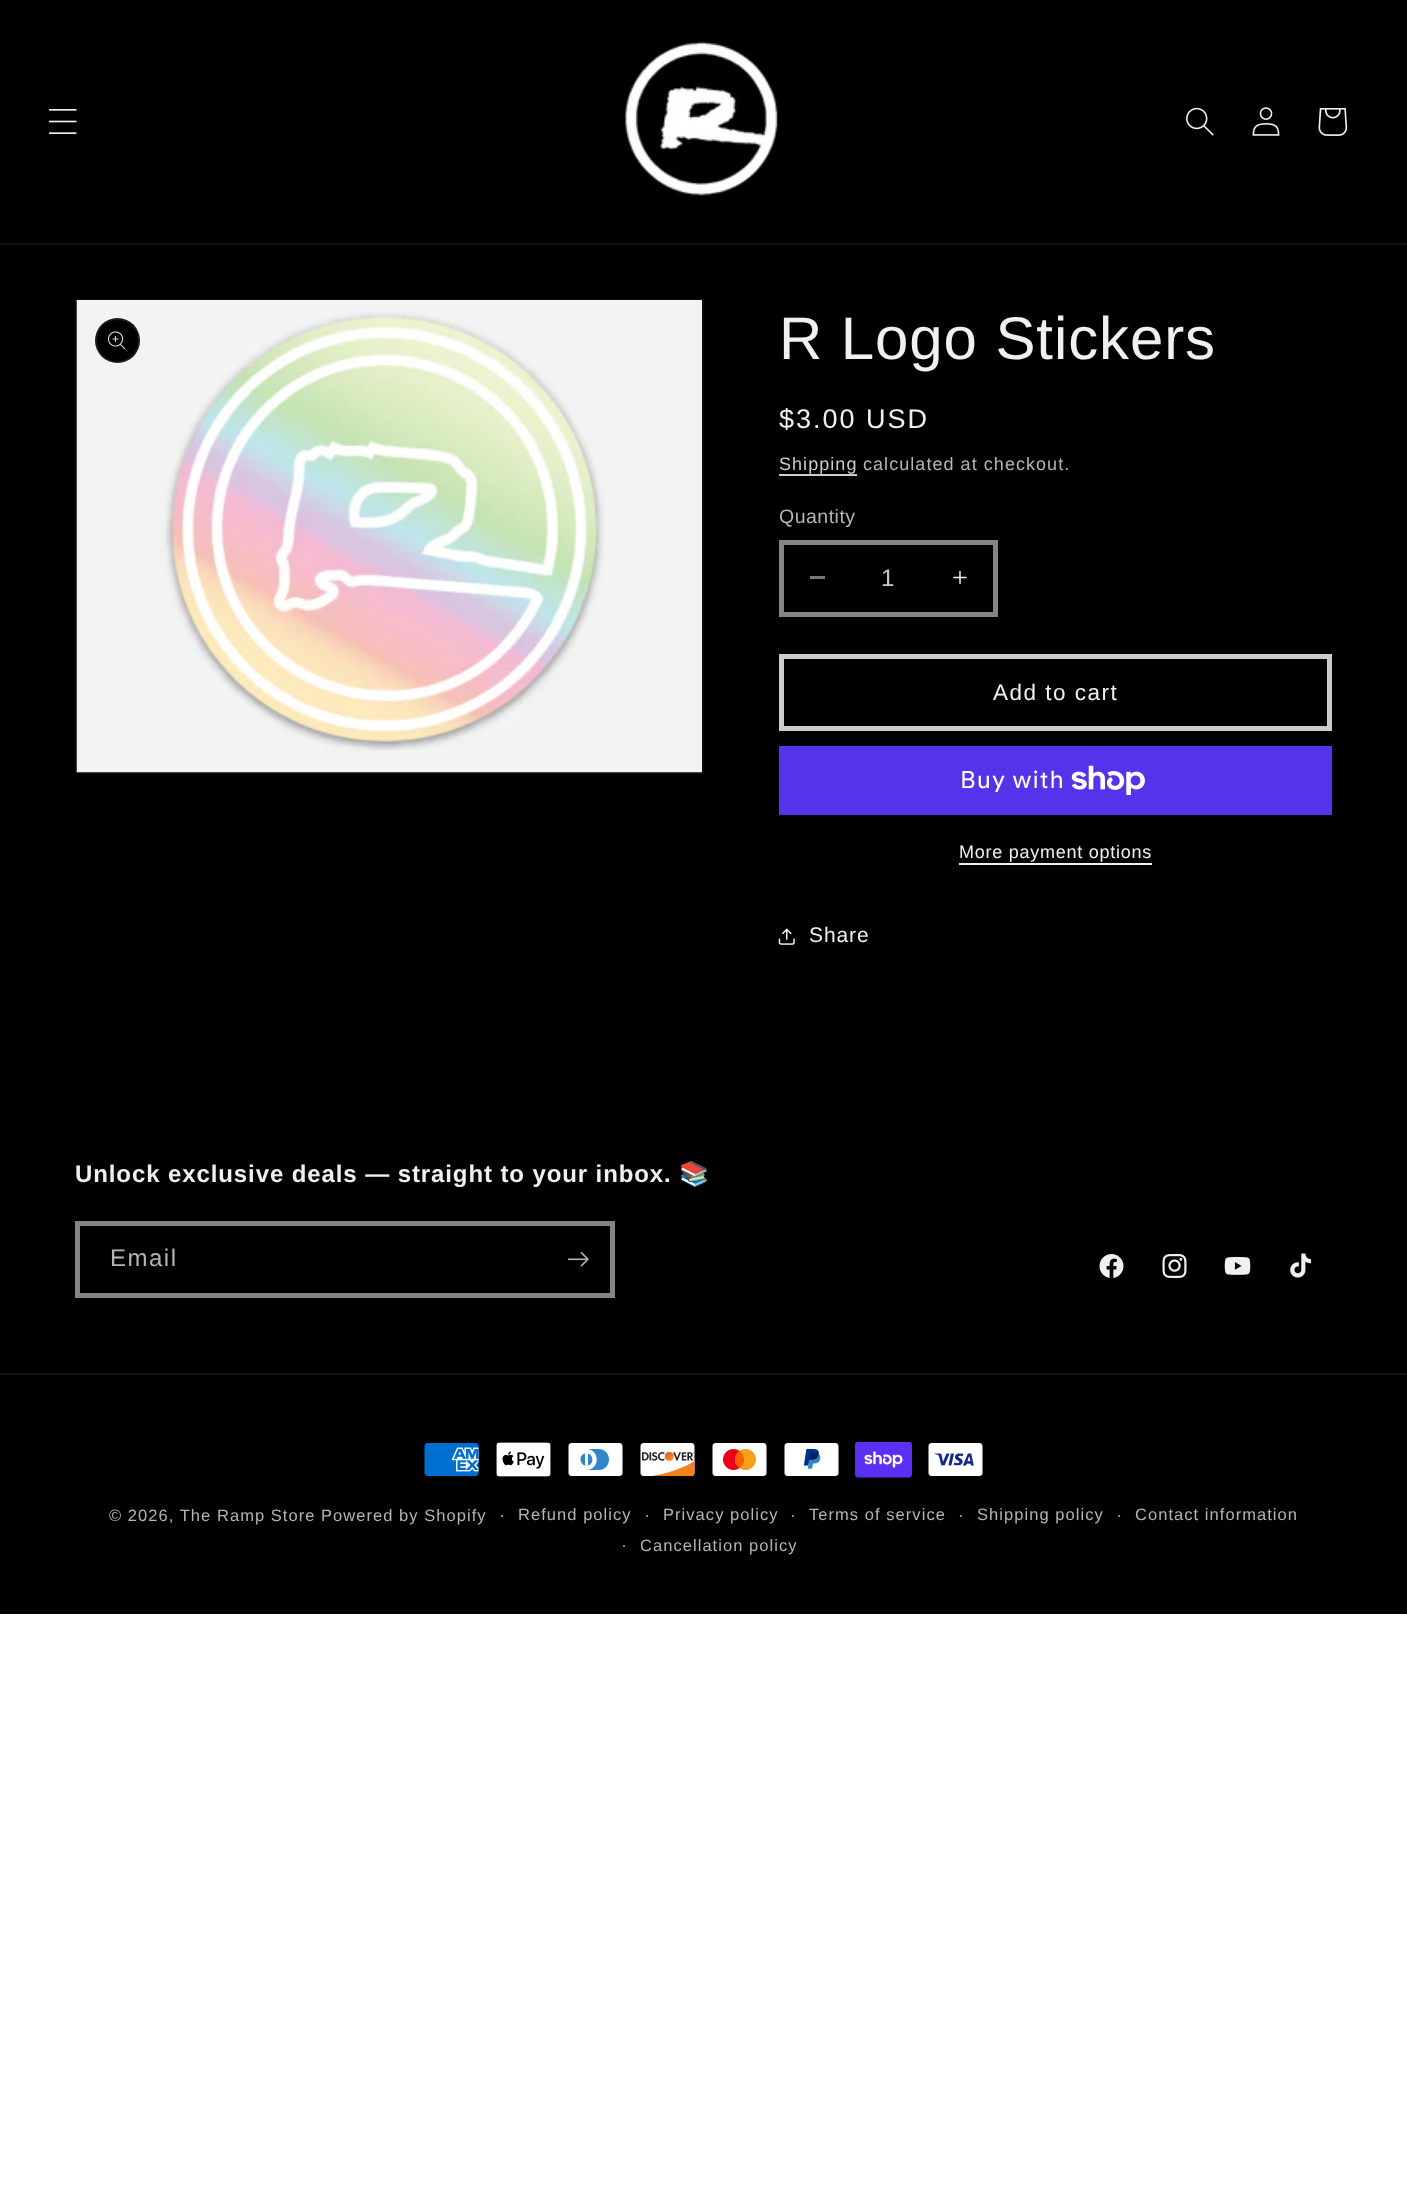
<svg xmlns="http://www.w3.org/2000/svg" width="1407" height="2209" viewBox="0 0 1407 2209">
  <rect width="100%" height="100%" fill="#ffffff"/>
  <rect x="0" y="0" width="1407" height="243" fill="#000000"/>
  <rect x="0" y="243" width="1407" height="2" fill="#131313"/>
  <image x="48" y="109" width="29" height="25" href="img1.png"/>
  <image x="623" y="41" width="155" height="155" href="img2.png"/>
  <image x="1186" y="107" width="28" height="29" href="img3.png"/>
  <image x="1252" y="107" width="28" height="29" href="img4.png"/>
  <image x="1318" y="108" width="30" height="28" href="img5.png"/>
  <rect x="0" y="245" width="1407" height="1369" fill="#000000"/>
  <rect x="76" y="300" width="627" height="473" fill="none" stroke="#0c0c0c" stroke-width="2"/>
  <image x="76" y="300" width="626" height="473" href="img6.png"/>
  <circle cx="117.5" cy="340.5" r="22.5" fill="#000000"/>
  <circle cx="117.5" cy="340.5" r="21.5" fill="none" stroke="#eef1ef" stroke-opacity="0.1" stroke-width="2"/>
  <image x="108" y="331" width="18" height="19" href="img7.png"/>
  <text x="779" y="359" font-family="Liberation Sans" font-size="60" letter-spacing="0.9" fill="#eef1ef">R Logo Stickers</text>
  <text x="779" y="428" font-family="Liberation Sans" font-size="27" letter-spacing="2" fill="#eef1ef">$3.00 USD</text>
  <text x="779" y="470" font-family="Liberation Sans" font-size="18" letter-spacing="1.05" fill="#cacdcb">Shipping</text>
  <rect x="779" y="474" width="78" height="2" fill="#cacdcb"/>
  <text x="863" y="470" font-family="Liberation Sans" font-size="18" letter-spacing="1.05" fill="#b3b5b3">calculated at checkout.</text>
  <text x="779" y="523" font-family="Liberation Sans" font-size="19.5" letter-spacing="0.5" fill="#b3b5b3">Quantity</text>
  <rect x="810" y="576" width="15" height="3" fill="#777978"/>
  <image x="953" y="570" width="14" height="15" href="img8.png"/>
  <rect x="781.5" y="542.5" width="214" height="72" fill="none" stroke="#838583" stroke-width="5"/>
  <text x="881" y="586" font-family="Liberation Sans" font-size="24" fill="#cacdcb">1</text>
  <rect x="781.5" y="656.5" width="548" height="72" fill="none" stroke="#cacdcb" stroke-width="5"/>
  <text x="993" y="700" font-family="Liberation Sans" font-size="22.5" letter-spacing="1.5" fill="#eef1ef">Add to cart</text>
  <rect x="779" y="746" width="553" height="69" fill="#5433eb"/>
  <text x="960" y="788" font-family="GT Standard" font-size="24" letter-spacing="0.9" fill="#ffffff">Buy with</text>
  <image x="1071" y="765" width="74" height="30" href="img9.png"/>
  <text x="959" y="858" font-family="Liberation Sans" font-size="18" letter-spacing="0.75" fill="#eef1ef">More payment options</text>
  <rect x="959" y="863" width="193" height="2" fill="#eef1ef"/>
  <image x="778" y="928" width="17" height="17" href="img10.png"/>
  <text x="809" y="942" font-family="Liberation Sans" font-size="21" letter-spacing="0.9" fill="#eef1ef">Share</text>
  <text x="75" y="1182" font-family="Liberation Sans" font-size="24" font-weight="bold" letter-spacing="0.9" fill="#eef1ef">Unlock exclusive deals — straight to your inbox.</text>
  <text x="679" y="1182" font-family="Noto Color Emoji" font-size="24" font-weight="bold" letter-spacing="0.9" fill="#eef1ef">📚</text>
  <rect x="77.5" y="1223.5" width="535" height="72" fill="none" stroke="#838583" stroke-width="5"/>
  <text x="110" y="1266" font-family="Liberation Sans" font-size="24" letter-spacing="1.5" fill="#b3b5b3">Email</text>
  <image x="567" y="1252" width="22" height="15" href="img11.png"/>
  <image x="1099" y="1254" width="25" height="24" href="img12.png"/>
  <image x="1162" y="1254" width="25" height="24" href="img13.png"/>
  <image x="1224" y="1257" width="27" height="18" href="img14.png"/>
  <image x="1290" y="1253" width="22" height="25" href="img15.png"/>
  <rect x="0" y="1373" width="1407" height="2" fill="#131313"/>
  <image x="424" y="1443" width="55" height="33" href="img16.png"/>
  <image x="496" y="1442" width="55" height="35" href="img17.png"/>
  <image x="568" y="1443" width="55" height="33" href="img18.png"/>
  <image x="640" y="1443" width="55" height="33" href="img19.png"/>
  <image x="712" y="1443" width="55" height="33" href="img20.png"/>
  <image x="784" y="1443" width="55" height="33" href="img21.png"/>
  <image x="855" y="1442" width="57" height="36" href="img22.png"/>
  <image x="928" y="1443" width="55" height="33" href="img23.png"/>
  <text x="109" y="1521" font-family="Liberation Sans" font-size="16.5" letter-spacing="1.05" fill="#b3b5b3">© 2026, The Ramp Store</text>
  <text x="321" y="1521" font-family="Liberation Sans" font-size="16.5" letter-spacing="1.05" fill="#b3b5b3">Powered by Shopify</text>
  <text x="499" y="1521" font-family="Liberation Sans" font-size="18" letter-spacing="1.05" fill="#b3b5b3">·</text>
  <text x="518" y="1520" font-family="Liberation Sans" font-size="16.5" letter-spacing="1.05" fill="#b3b5b3">Refund policy</text>
  <text x="644" y="1521" font-family="Liberation Sans" font-size="18" letter-spacing="1.05" fill="#b3b5b3">·</text>
  <text x="663" y="1520" font-family="Liberation Sans" font-size="16.5" letter-spacing="1.05" fill="#b3b5b3">Privacy policy</text>
  <text x="790" y="1521" font-family="Liberation Sans" font-size="18" letter-spacing="1.05" fill="#b3b5b3">·</text>
  <text x="809" y="1520" font-family="Liberation Sans" font-size="16.5" letter-spacing="1.05" fill="#b3b5b3">Terms of service</text>
  <text x="958" y="1521" font-family="Liberation Sans" font-size="18" letter-spacing="1.05" fill="#b3b5b3">·</text>
  <text x="977" y="1520" font-family="Liberation Sans" font-size="16.5" letter-spacing="1.05" fill="#b3b5b3">Shipping policy</text>
  <text x="1116" y="1521" font-family="Liberation Sans" font-size="18" letter-spacing="1.05" fill="#b3b5b3">·</text>
  <text x="1135" y="1520" font-family="Liberation Sans" font-size="16.5" letter-spacing="1.05" fill="#b3b5b3">Contact information</text>
  <text x="621" y="1551" font-family="Liberation Sans" font-size="18" letter-spacing="1.05" fill="#b3b5b3">·</text>
  <text x="640" y="1551" font-family="Liberation Sans" font-size="16.5" letter-spacing="1.05" fill="#b3b5b3">Cancellation policy</text>
</svg>
